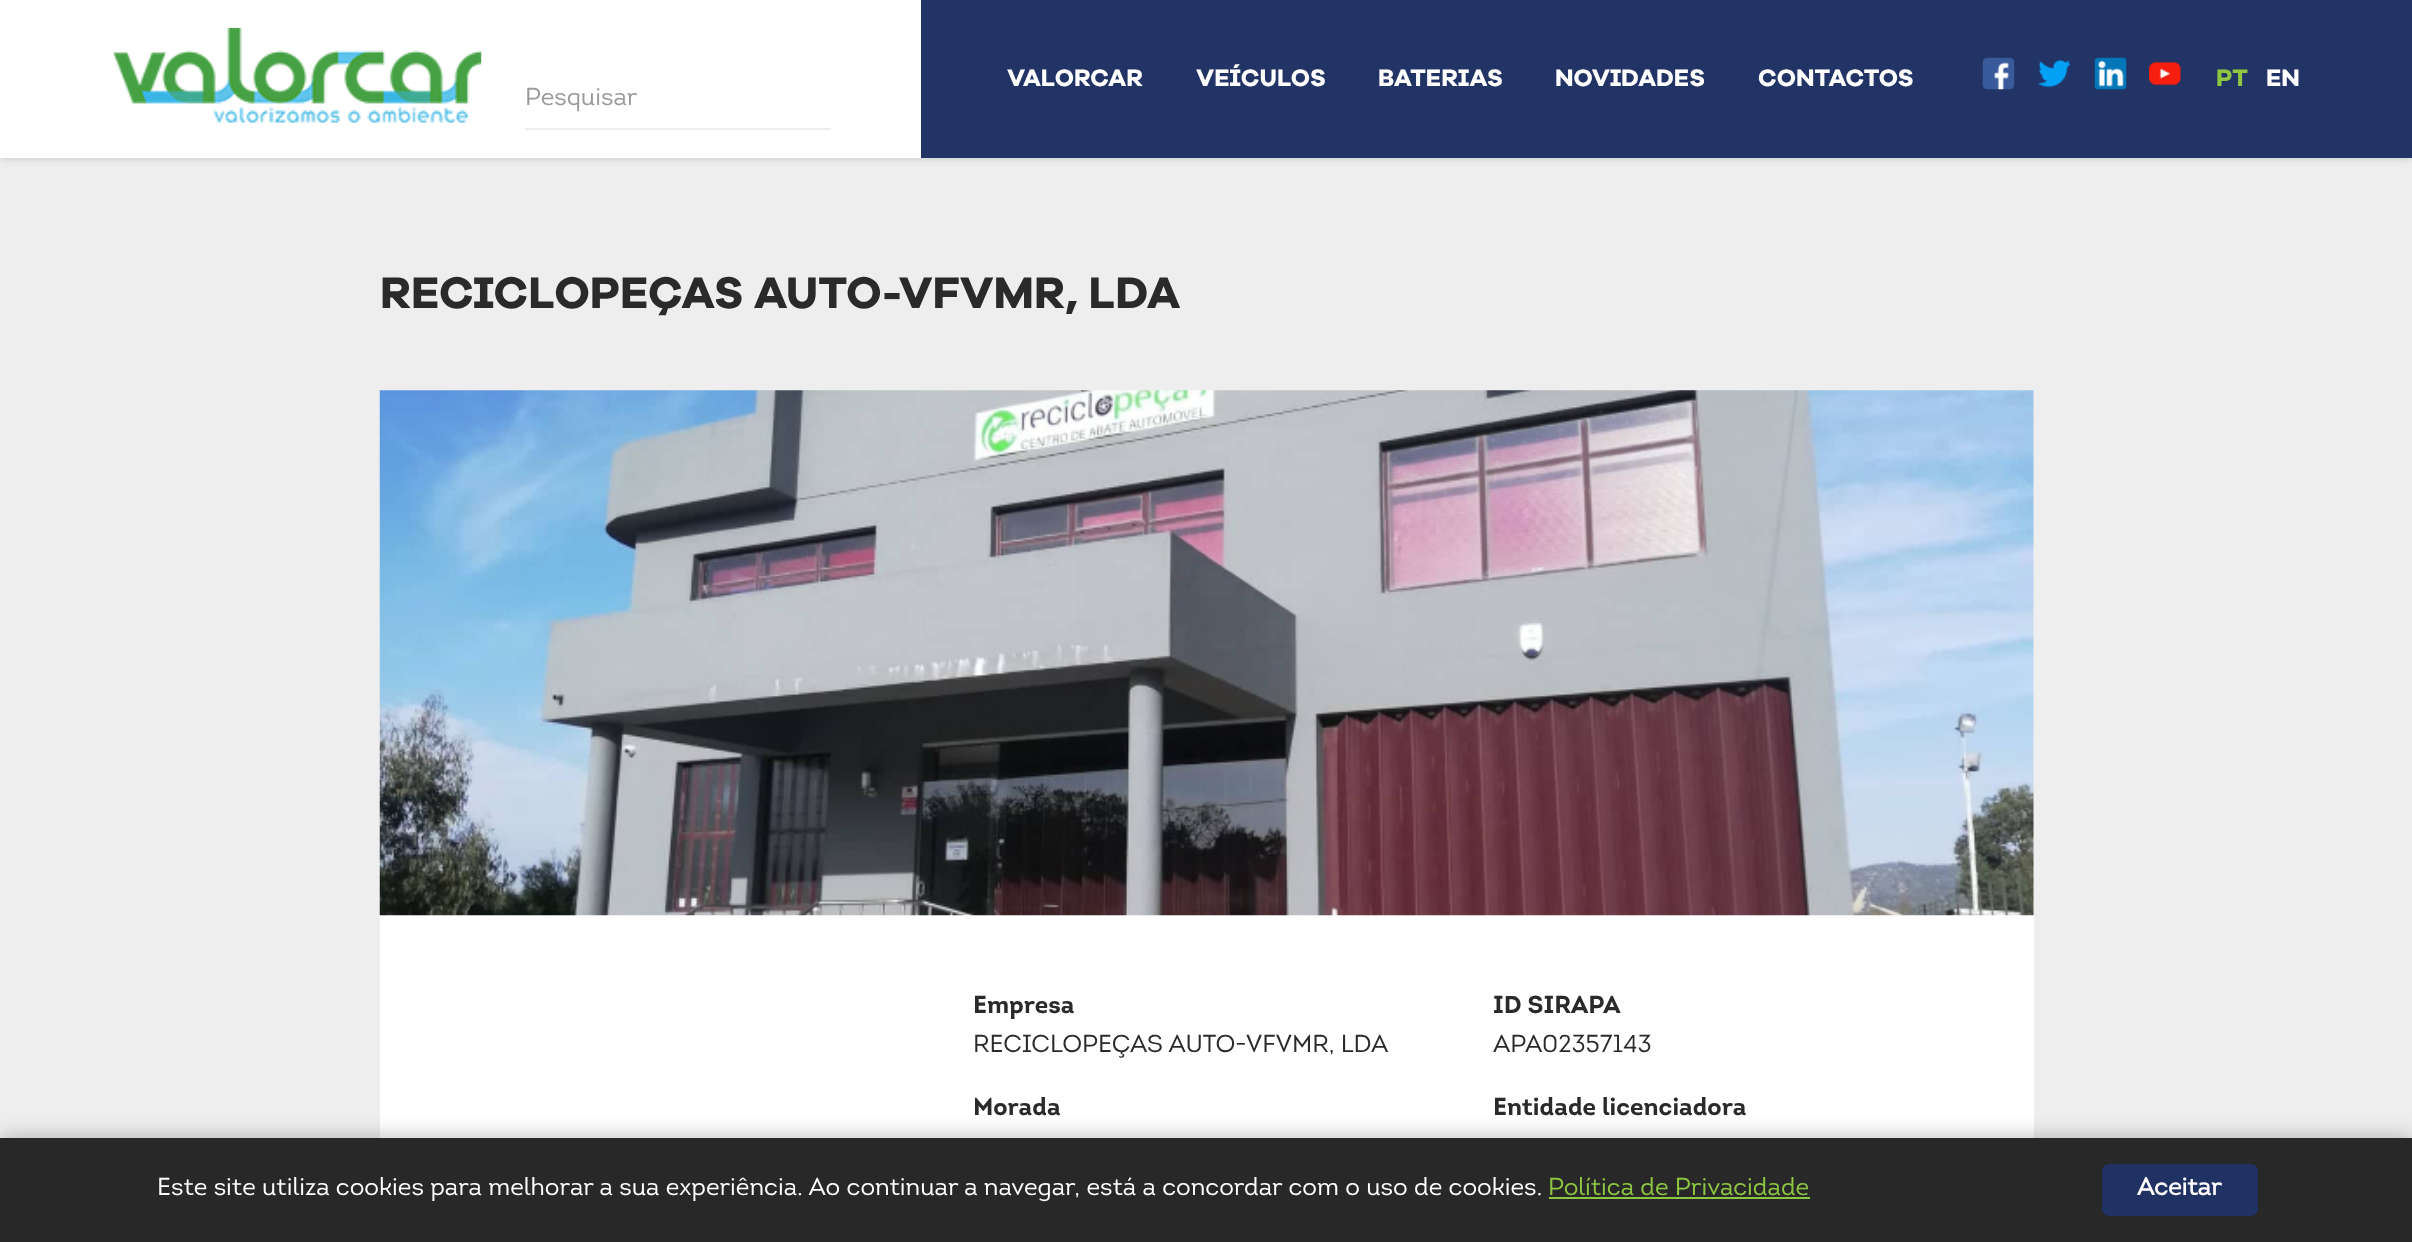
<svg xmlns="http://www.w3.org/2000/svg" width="2412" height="1242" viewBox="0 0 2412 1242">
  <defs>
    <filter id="blur1" x="-50%" y="-200%" width="200%" height="500%"><feGaussianBlur stdDeviation="4.5"/></filter>
    <filter id="blur2" x="-50%" y="-200%" width="200%" height="500%"><feGaussianBlur stdDeviation="9"/></filter>
  </defs>
  <rect width="100%" height="100%" fill="#eeeeef"/>
  <rect x="0" y="0" width="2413" height="158" fill="#b3b3b3" fill-opacity="0.75" filter="url(#blur1)"/>
  <rect x="0" y="0" width="921" height="158" fill="#ffffff"/>
  <rect x="921" y="0" width="1491" height="158" fill="#223365"/>
  <text x="1007" y="86" font-family="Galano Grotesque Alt" font-size="24.5" font-weight="bold" fill="#ffffff">VALORCAR</text>
  <text x="1196" y="86" font-family="Galano Grotesque Alt" font-size="24.5" font-weight="bold" fill="#ffffff">VEÍCULOS</text>
  <text x="1378" y="86" font-family="Galano Grotesque Alt" font-size="24.5" font-weight="bold" fill="#ffffff">BATERIAS</text>
  <text x="1555" y="86" font-family="Galano Grotesque Alt" font-size="24.5" font-weight="bold" fill="#ffffff">NOVIDADES</text>
  <text x="1758" y="86" font-family="Galano Grotesque Alt" font-size="24.5" font-weight="bold" fill="#ffffff">CONTACTOS</text>
  <image x="1982" y="57" width="33" height="33" href="img1.png"/>
  <image x="2038" y="59" width="33" height="29" href="img2.png"/>
  <image x="2094" y="57" width="33" height="33" href="img3.png"/>
  <image x="2149" y="61" width="32" height="25" href="img4.png"/>
  <text x="2216" y="86" font-family="Galano Grotesque Alt" font-size="24.5" font-weight="bold" fill="#8ec742">PT</text>
  <text x="2266" y="86" font-family="Galano Grotesque Alt" font-size="24.5" font-weight="bold" fill="#ffffff">EN</text>
  <image x="113" y="28" width="369" height="95" href="img5.png"/>
  <rect x="525" y="128" width="306" height="2" fill="#eeeeef"/>
  <text x="525" y="105" font-family="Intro" font-size="24.5" fill="#9a9a9a">Pesquisar</text>
  <text x="380" y="308" font-family="Galano Grotesque Alt" font-size="45.5" font-weight="bold" fill="#2a2a2a">RECICLOPEÇAS AUTO-VFVMR, LDA</text>
  <rect x="380" y="915" width="1654" height="223" fill="#ffffff"/>
  <image x="379" y="390" width="1655" height="526" href="img6.png"/>
  <text x="973" y="1013" font-family="Intro" font-size="24.5" font-weight="bold" fill="#2a2a2a">Empresa</text>
  <text x="973" y="1052" font-family="Intro" font-size="24.5" fill="#2a2a2a">RECICLOPEÇAS AUTO-VFVMR, LDA</text>
  <text x="973" y="1115" font-family="Intro" font-size="24.5" font-weight="bold" fill="#2a2a2a">Morada</text>
  <text x="1493" y="1013" font-family="Intro" font-size="24.5" font-weight="bold" fill="#2a2a2a">ID SIRAPA</text>
  <text x="1493" y="1052" font-family="Intro" font-size="24.5" fill="#2a2a2a">APA02357143</text>
  <text x="1493" y="1115" font-family="Intro" font-size="24.5" font-weight="bold" fill="#2a2a2a">Entidade licenciadora</text>
  <rect x="0" y="1134" width="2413" height="105" fill="#000000" fill-opacity="0.2" filter="url(#blur2)"/>
  <rect x="0" y="1138" width="2412" height="104" fill="#282828"/>
  <text x="157" y="1195" font-family="Intro" font-size="24.5" fill="#ffffff">Este site utiliza cookies para melhorar a sua experiência. Ao continuar a navegar, está a concordar com o uso de cookies.</text>
  <text x="1548" y="1195" font-family="Intro" font-size="24.5" fill="#8ec742">Política de Privacidade</text>
  <rect x="1549" y="1197" width="261" height="2" fill="#8dc640"/>
  <rect x="2102" y="1164" width="156" height="52" rx="7" fill="#203163"/>
  <text x="2137" y="1195" font-family="'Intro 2'" font-size="24.5" font-weight="bold" fill="#ffffff">Aceitar</text>
</svg>
